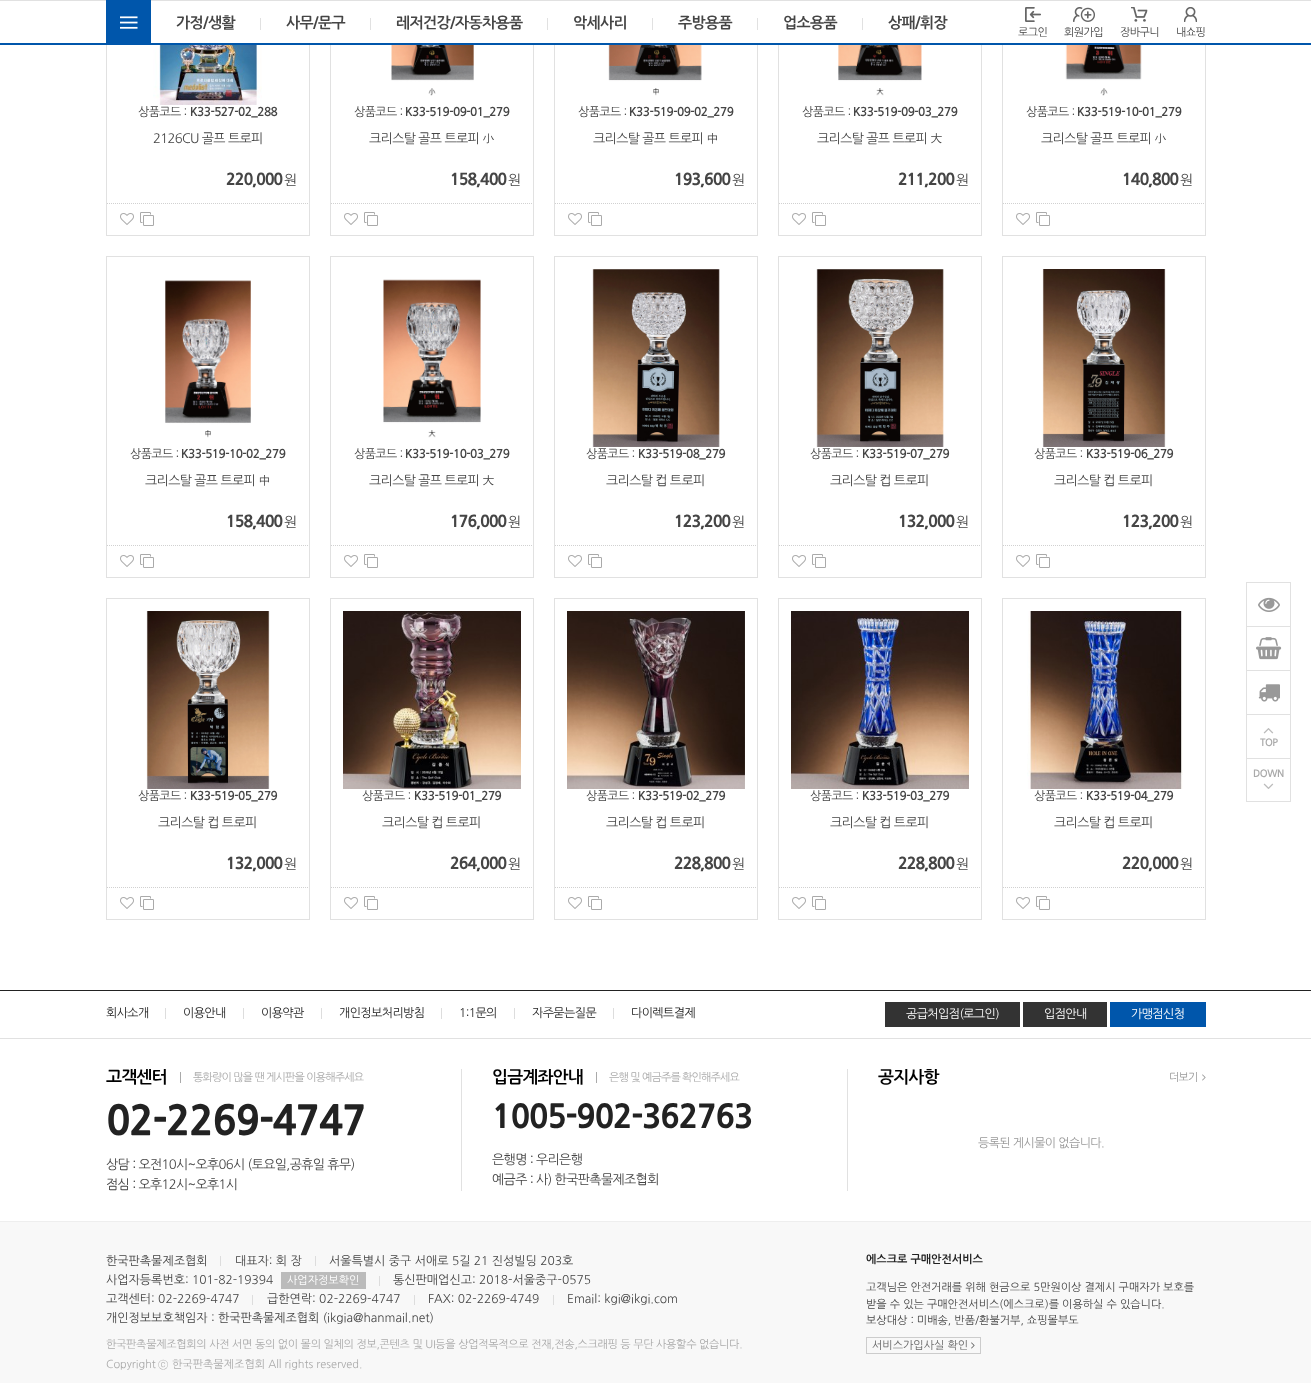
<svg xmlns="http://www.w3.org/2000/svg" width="1311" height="1383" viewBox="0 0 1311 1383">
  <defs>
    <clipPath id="clip1"><rect x="106" y="1069" width="325" height="17"/></clipPath>
    <clipPath id="clip2"><rect x="492" y="1069" width="325" height="17"/></clipPath>
    <clipPath id="clip3"><rect x="878" y="1069" width="328" height="17"/></clipPath>
  </defs>
  <rect width="100%" height="100%" fill="#ffffff"/>
  <rect x="106.5" y="-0.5" width="203" height="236" fill="none" stroke="#e1e1e1"/>
  <rect x="330.5" y="-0.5" width="203" height="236" fill="none" stroke="#e1e1e1"/>
  <rect x="554.5" y="-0.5" width="203" height="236" fill="none" stroke="#e1e1e1"/>
  <rect x="778.5" y="-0.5" width="203" height="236" fill="none" stroke="#e1e1e1"/>
  <rect x="1002.5" y="-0.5" width="203" height="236" fill="none" stroke="#e1e1e1"/>
  <rect x="106" y="1" width="1100" height="42" fill="#ffffff"/>
  <rect x="0" y="0" width="1311" height="1" fill="#e1e1e1"/>
  <rect x="0" y="43" width="1311" height="2" fill="#0056ab"/>
  <rect x="106" y="0" width="45" height="43" fill="#0056ab"/>
  <image x="120" y="16" width="18" height="13" href="img1.png"/>
  <text x="176" y="28" font-family="NanumGothic" font-size="15" font-weight="bold" letter-spacing="-0.6" fill="#454545">가정/생활</text>
  <rect x="260" y="18" width="1" height="12" fill="#e1e1e1"/>
  <text x="286" y="28" font-family="NanumGothic" font-size="15" font-weight="bold" letter-spacing="-0.6" fill="#454545">사무/문구</text>
  <rect x="370" y="18" width="1" height="12" fill="#e1e1e1"/>
  <text x="396" y="28" font-family="NanumGothic" font-size="15" font-weight="bold" letter-spacing="-0.6" fill="#454545">레저건강/자동차용품</text>
  <rect x="547" y="18" width="1" height="12" fill="#e1e1e1"/>
  <text x="573" y="28" font-family="NanumGothic" font-size="15" font-weight="bold" letter-spacing="-0.6" fill="#454545">악세사리</text>
  <rect x="652" y="18" width="1" height="12" fill="#e1e1e1"/>
  <text x="678" y="28" font-family="NanumGothic" font-size="15" font-weight="bold" letter-spacing="-0.6" fill="#454545">주방용품</text>
  <rect x="757" y="18" width="1" height="12" fill="#e1e1e1"/>
  <text x="783" y="28" font-family="NanumGothic" font-size="15" font-weight="bold" letter-spacing="-0.6" fill="#454545">업소용품</text>
  <rect x="862" y="18" width="1" height="12" fill="#e1e1e1"/>
  <text x="888" y="28" font-family="NanumGothic" font-size="15" font-weight="bold" letter-spacing="-0.6" fill="#454545">상패/휘장</text>
  <image x="1025" y="7" width="16" height="15" href="img2.png"/>
  <text x="1018" y="36" font-family="NanumGothic" font-size="11" letter-spacing="-0.6" fill="#454545">로그인</text>
  <image x="1073" y="7" width="22" height="15" href="img3.png"/>
  <text x="1064" y="36" font-family="NanumGothic" font-size="11" letter-spacing="-0.6" fill="#454545">회원가입</text>
  <image x="1131" y="7" width="17" height="15" href="img4.png"/>
  <text x="1120" y="36" font-family="NanumGothic" font-size="11" letter-spacing="-0.6" fill="#454545">장바구니</text>
  <image x="1184" y="7" width="13" height="15" href="img5.png"/>
  <text x="1176" y="36" font-family="NanumGothic" font-size="11" letter-spacing="-0.6" fill="#454545">내쇼핑</text>
  <image x="153" y="45" width="109" height="60" href="img6.png"/>
  <text x="138" y="116" font-family="NanumGothic" font-size="12" letter-spacing="-0.6" fill="#454545">상품코드 :</text>
  <text x="190" y="116" font-family="NanumGothic" font-size="12" font-weight="bold" letter-spacing="-0.6" fill="#454545">K33-527-02_288</text>
  <text x="153" y="143" font-family="NanumGothic" font-size="13" letter-spacing="-0.65" fill="#454545">2126CU 골프 트로피</text>
  <text x="226" y="185" font-family="NanumGothic" font-size="16" font-weight="800" letter-spacing="-1" fill="#454545">220,000</text>
  <text x="284" y="185" font-family="NanumGothic" font-size="14" letter-spacing="-1" fill="#454545">원</text>
  <path d="M107 203.5H309" fill="none" stroke="#d1d1d1" stroke-dasharray="1 1"/>
  <image x="120" y="213" width="14" height="12" href="img7.png"/>
  <image x="140" y="212" width="14" height="14" href="img8.png"/>
  <image x="391" y="45" width="83" height="51" href="img9.png"/>
  <text x="354" y="116" font-family="NanumGothic" font-size="12" letter-spacing="-0.6" fill="#454545">상품코드 :</text>
  <text x="405" y="116" font-family="NanumGothic" font-size="12" font-weight="bold" letter-spacing="-0.6" fill="#454545">K33-519-09-01_279</text>
  <text x="369" y="143" font-family="NanumGothic" font-size="13" letter-spacing="-0.65" fill="#454545">크리스탈 골프 트로피</text>
  <text x="482" y="143" font-family="Gulim" font-size="13" letter-spacing="-0.65" fill="#454545">小</text>
  <text x="450" y="185" font-family="NanumGothic" font-size="16" font-weight="800" letter-spacing="-1" fill="#454545">158,400</text>
  <text x="508" y="185" font-family="NanumGothic" font-size="14" letter-spacing="-1" fill="#454545">원</text>
  <path d="M331 203.5H533" fill="none" stroke="#d1d1d1" stroke-dasharray="1 1"/>
  <image x="344" y="213" width="14" height="12" href="img7.png"/>
  <image x="364" y="212" width="14" height="14" href="img8.png"/>
  <image x="608" y="45" width="94" height="51" href="img10.png"/>
  <text x="578" y="116" font-family="NanumGothic" font-size="12" letter-spacing="-0.6" fill="#454545">상품코드 :</text>
  <text x="629" y="116" font-family="NanumGothic" font-size="12" font-weight="bold" letter-spacing="-0.6" fill="#454545">K33-519-09-02_279</text>
  <text x="593" y="143" font-family="NanumGothic" font-size="13" letter-spacing="-0.65" fill="#454545">크리스탈 골프 트로피</text>
  <text x="706" y="143" font-family="Gulim" font-size="13" letter-spacing="-0.65" fill="#454545">中</text>
  <text x="674" y="185" font-family="NanumGothic" font-size="16" font-weight="800" letter-spacing="-1" fill="#454545">193,600</text>
  <text x="732" y="185" font-family="NanumGothic" font-size="14" letter-spacing="-1" fill="#454545">원</text>
  <path d="M555 203.5H757" fill="none" stroke="#d1d1d1" stroke-dasharray="1 1"/>
  <image x="568" y="213" width="14" height="12" href="img7.png"/>
  <image x="588" y="212" width="14" height="14" href="img8.png"/>
  <image x="838" y="45" width="84" height="51" href="img11.png"/>
  <text x="802" y="116" font-family="NanumGothic" font-size="12" letter-spacing="-0.6" fill="#454545">상품코드 :</text>
  <text x="853" y="116" font-family="NanumGothic" font-size="12" font-weight="bold" letter-spacing="-0.6" fill="#454545">K33-519-09-03_279</text>
  <text x="817" y="143" font-family="NanumGothic" font-size="13" letter-spacing="-0.65" fill="#454545">크리스탈 골프 트로피</text>
  <text x="930" y="143" font-family="Gulim" font-size="13" letter-spacing="-0.65" fill="#454545">大</text>
  <text x="898" y="185" font-family="NanumGothic" font-size="16" font-weight="800" letter-spacing="-1" fill="#454545">211,200</text>
  <text x="956" y="185" font-family="NanumGothic" font-size="14" letter-spacing="-1" fill="#454545">원</text>
  <path d="M779 203.5H981" fill="none" stroke="#d1d1d1" stroke-dasharray="1 1"/>
  <image x="792" y="213" width="14" height="12" href="img7.png"/>
  <image x="812" y="212" width="14" height="14" href="img8.png"/>
  <image x="1065" y="45" width="77" height="51" href="img12.png"/>
  <text x="1026" y="116" font-family="NanumGothic" font-size="12" letter-spacing="-0.6" fill="#454545">상품코드 :</text>
  <text x="1077" y="116" font-family="NanumGothic" font-size="12" font-weight="bold" letter-spacing="-0.6" fill="#454545">K33-519-10-01_279</text>
  <text x="1041" y="143" font-family="NanumGothic" font-size="13" letter-spacing="-0.65" fill="#454545">크리스탈 골프 트로피</text>
  <text x="1154" y="143" font-family="Gulim" font-size="13" letter-spacing="-0.65" fill="#454545">小</text>
  <text x="1122" y="185" font-family="NanumGothic" font-size="16" font-weight="800" letter-spacing="-1" fill="#454545">140,800</text>
  <text x="1180" y="185" font-family="NanumGothic" font-size="14" letter-spacing="-1" fill="#454545">원</text>
  <path d="M1003 203.5H1205" fill="none" stroke="#d1d1d1" stroke-dasharray="1 1"/>
  <image x="1016" y="213" width="14" height="12" href="img7.png"/>
  <image x="1036" y="212" width="14" height="14" href="img8.png"/>
  <rect x="106.5" y="256.5" width="203" height="321" fill="none" stroke="#e1e1e1"/>
  <image x="165" y="280" width="86" height="158" href="img13.png"/>
  <text x="130" y="458" font-family="NanumGothic" font-size="12" letter-spacing="-0.6" fill="#454545">상품코드 :</text>
  <text x="181" y="458" font-family="NanumGothic" font-size="12" font-weight="bold" letter-spacing="-0.6" fill="#454545">K33-519-10-02_279</text>
  <text x="145" y="485" font-family="NanumGothic" font-size="13" letter-spacing="-0.65" fill="#454545">크리스탈 골프 트로피</text>
  <text x="258" y="485" font-family="Gulim" font-size="13" letter-spacing="-0.65" fill="#454545">中</text>
  <text x="226" y="527" font-family="NanumGothic" font-size="16" font-weight="800" letter-spacing="-1" fill="#454545">158,400</text>
  <text x="284" y="527" font-family="NanumGothic" font-size="14" letter-spacing="-1" fill="#454545">원</text>
  <path d="M107 545.5H309" fill="none" stroke="#d1d1d1" stroke-dasharray="1 1"/>
  <image x="120" y="555" width="14" height="12" href="img7.png"/>
  <image x="140" y="554" width="14" height="14" href="img8.png"/>
  <rect x="330.5" y="256.5" width="203" height="321" fill="none" stroke="#e1e1e1"/>
  <image x="383" y="279" width="98" height="159" href="img14.png"/>
  <text x="354" y="458" font-family="NanumGothic" font-size="12" letter-spacing="-0.6" fill="#454545">상품코드 :</text>
  <text x="405" y="458" font-family="NanumGothic" font-size="12" font-weight="bold" letter-spacing="-0.6" fill="#454545">K33-519-10-03_279</text>
  <text x="369" y="485" font-family="NanumGothic" font-size="13" letter-spacing="-0.65" fill="#454545">크리스탈 골프 트로피</text>
  <text x="482" y="485" font-family="Gulim" font-size="13" letter-spacing="-0.65" fill="#454545">大</text>
  <text x="450" y="527" font-family="NanumGothic" font-size="16" font-weight="800" letter-spacing="-1" fill="#454545">176,000</text>
  <text x="508" y="527" font-family="NanumGothic" font-size="14" letter-spacing="-1" fill="#454545">원</text>
  <path d="M331 545.5H533" fill="none" stroke="#d1d1d1" stroke-dasharray="1 1"/>
  <image x="344" y="555" width="14" height="12" href="img7.png"/>
  <image x="364" y="554" width="14" height="14" href="img8.png"/>
  <rect x="554.5" y="256.5" width="203" height="321" fill="none" stroke="#e1e1e1"/>
  <image x="592" y="269" width="128" height="178" href="img15.png"/>
  <text x="586" y="458" font-family="NanumGothic" font-size="12" letter-spacing="-0.6" fill="#454545">상품코드 :</text>
  <text x="638" y="458" font-family="NanumGothic" font-size="12" font-weight="bold" letter-spacing="-0.6" fill="#454545">K33-519-08_279</text>
  <text x="606" y="485" font-family="NanumGothic" font-size="13" letter-spacing="-0.65" fill="#454545">크리스탈 컵 트로피</text>
  <text x="674" y="527" font-family="NanumGothic" font-size="16" font-weight="800" letter-spacing="-1" fill="#454545">123,200</text>
  <text x="732" y="527" font-family="NanumGothic" font-size="14" letter-spacing="-1" fill="#454545">원</text>
  <path d="M555 545.5H757" fill="none" stroke="#d1d1d1" stroke-dasharray="1 1"/>
  <image x="568" y="555" width="14" height="12" href="img7.png"/>
  <image x="588" y="554" width="14" height="14" href="img8.png"/>
  <rect x="778.5" y="256.5" width="203" height="321" fill="none" stroke="#e1e1e1"/>
  <image x="816" y="269" width="128" height="178" href="img16.png"/>
  <text x="810" y="458" font-family="NanumGothic" font-size="12" letter-spacing="-0.6" fill="#454545">상품코드 :</text>
  <text x="862" y="458" font-family="NanumGothic" font-size="12" font-weight="bold" letter-spacing="-0.6" fill="#454545">K33-519-07_279</text>
  <text x="830" y="485" font-family="NanumGothic" font-size="13" letter-spacing="-0.65" fill="#454545">크리스탈 컵 트로피</text>
  <text x="898" y="527" font-family="NanumGothic" font-size="16" font-weight="800" letter-spacing="-1" fill="#454545">132,000</text>
  <text x="956" y="527" font-family="NanumGothic" font-size="14" letter-spacing="-1" fill="#454545">원</text>
  <path d="M779 545.5H981" fill="none" stroke="#d1d1d1" stroke-dasharray="1 1"/>
  <image x="792" y="555" width="14" height="12" href="img7.png"/>
  <image x="812" y="554" width="14" height="14" href="img8.png"/>
  <rect x="1002.5" y="256.5" width="203" height="321" fill="none" stroke="#e1e1e1"/>
  <image x="1042" y="269" width="124" height="178" href="img17.png"/>
  <text x="1034" y="458" font-family="NanumGothic" font-size="12" letter-spacing="-0.6" fill="#454545">상품코드 :</text>
  <text x="1086" y="458" font-family="NanumGothic" font-size="12" font-weight="bold" letter-spacing="-0.6" fill="#454545">K33-519-06_279</text>
  <text x="1054" y="485" font-family="NanumGothic" font-size="13" letter-spacing="-0.65" fill="#454545">크리스탈 컵 트로피</text>
  <text x="1122" y="527" font-family="NanumGothic" font-size="16" font-weight="800" letter-spacing="-1" fill="#454545">123,200</text>
  <text x="1180" y="527" font-family="NanumGothic" font-size="14" letter-spacing="-1" fill="#454545">원</text>
  <path d="M1003 545.5H1205" fill="none" stroke="#d1d1d1" stroke-dasharray="1 1"/>
  <image x="1016" y="555" width="14" height="12" href="img7.png"/>
  <image x="1036" y="554" width="14" height="14" href="img8.png"/>
  <rect x="106.5" y="598.5" width="203" height="321" fill="none" stroke="#e1e1e1"/>
  <image x="146" y="611" width="124" height="178" href="img18.png"/>
  <text x="138" y="800" font-family="NanumGothic" font-size="12" letter-spacing="-0.6" fill="#454545">상품코드 :</text>
  <text x="190" y="800" font-family="NanumGothic" font-size="12" font-weight="bold" letter-spacing="-0.6" fill="#454545">K33-519-05_279</text>
  <text x="158" y="827" font-family="NanumGothic" font-size="13" letter-spacing="-0.65" fill="#454545">크리스탈 컵 트로피</text>
  <text x="226" y="869" font-family="NanumGothic" font-size="16" font-weight="800" letter-spacing="-1" fill="#454545">132,000</text>
  <text x="284" y="869" font-family="NanumGothic" font-size="14" letter-spacing="-1" fill="#454545">원</text>
  <path d="M107 887.5H309" fill="none" stroke="#d1d1d1" stroke-dasharray="1 1"/>
  <image x="120" y="897" width="14" height="12" href="img7.png"/>
  <image x="140" y="896" width="14" height="14" href="img8.png"/>
  <rect x="330.5" y="598.5" width="203" height="321" fill="none" stroke="#e1e1e1"/>
  <image x="343" y="611" width="178" height="178" href="img19.png"/>
  <text x="362" y="800" font-family="NanumGothic" font-size="12" letter-spacing="-0.6" fill="#454545">상품코드 :</text>
  <text x="414" y="800" font-family="NanumGothic" font-size="12" font-weight="bold" letter-spacing="-0.6" fill="#454545">K33-519-01_279</text>
  <text x="382" y="827" font-family="NanumGothic" font-size="13" letter-spacing="-0.65" fill="#454545">크리스탈 컵 트로피</text>
  <text x="450" y="869" font-family="NanumGothic" font-size="16" font-weight="800" letter-spacing="-1" fill="#454545">264,000</text>
  <text x="508" y="869" font-family="NanumGothic" font-size="14" letter-spacing="-1" fill="#454545">원</text>
  <path d="M331 887.5H533" fill="none" stroke="#d1d1d1" stroke-dasharray="1 1"/>
  <image x="344" y="897" width="14" height="12" href="img7.png"/>
  <image x="364" y="896" width="14" height="14" href="img8.png"/>
  <rect x="554.5" y="598.5" width="203" height="321" fill="none" stroke="#e1e1e1"/>
  <image x="567" y="611" width="178" height="178" href="img20.png"/>
  <text x="586" y="800" font-family="NanumGothic" font-size="12" letter-spacing="-0.6" fill="#454545">상품코드 :</text>
  <text x="638" y="800" font-family="NanumGothic" font-size="12" font-weight="bold" letter-spacing="-0.6" fill="#454545">K33-519-02_279</text>
  <text x="606" y="827" font-family="NanumGothic" font-size="13" letter-spacing="-0.65" fill="#454545">크리스탈 컵 트로피</text>
  <text x="674" y="869" font-family="NanumGothic" font-size="16" font-weight="800" letter-spacing="-1" fill="#454545">228,800</text>
  <text x="732" y="869" font-family="NanumGothic" font-size="14" letter-spacing="-1" fill="#454545">원</text>
  <path d="M555 887.5H757" fill="none" stroke="#d1d1d1" stroke-dasharray="1 1"/>
  <image x="568" y="897" width="14" height="12" href="img7.png"/>
  <image x="588" y="896" width="14" height="14" href="img8.png"/>
  <rect x="778.5" y="598.5" width="203" height="321" fill="none" stroke="#e1e1e1"/>
  <image x="791" y="611" width="178" height="178" href="img21.png"/>
  <text x="810" y="800" font-family="NanumGothic" font-size="12" letter-spacing="-0.6" fill="#454545">상품코드 :</text>
  <text x="862" y="800" font-family="NanumGothic" font-size="12" font-weight="bold" letter-spacing="-0.6" fill="#454545">K33-519-03_279</text>
  <text x="830" y="827" font-family="NanumGothic" font-size="13" letter-spacing="-0.65" fill="#454545">크리스탈 컵 트로피</text>
  <text x="898" y="869" font-family="NanumGothic" font-size="16" font-weight="800" letter-spacing="-1" fill="#454545">228,800</text>
  <text x="956" y="869" font-family="NanumGothic" font-size="14" letter-spacing="-1" fill="#454545">원</text>
  <path d="M779 887.5H981" fill="none" stroke="#d1d1d1" stroke-dasharray="1 1"/>
  <image x="792" y="897" width="14" height="12" href="img7.png"/>
  <image x="812" y="896" width="14" height="14" href="img8.png"/>
  <rect x="1002.5" y="598.5" width="203" height="321" fill="none" stroke="#e1e1e1"/>
  <image x="1027" y="611" width="156" height="178" href="img22.png"/>
  <text x="1034" y="800" font-family="NanumGothic" font-size="12" letter-spacing="-0.6" fill="#454545">상품코드 :</text>
  <text x="1086" y="800" font-family="NanumGothic" font-size="12" font-weight="bold" letter-spacing="-0.6" fill="#454545">K33-519-04_279</text>
  <text x="1054" y="827" font-family="NanumGothic" font-size="13" letter-spacing="-0.65" fill="#454545">크리스탈 컵 트로피</text>
  <text x="1122" y="869" font-family="NanumGothic" font-size="16" font-weight="800" letter-spacing="-1" fill="#454545">220,000</text>
  <text x="1180" y="869" font-family="NanumGothic" font-size="14" letter-spacing="-1" fill="#454545">원</text>
  <path d="M1003 887.5H1205" fill="none" stroke="#d1d1d1" stroke-dasharray="1 1"/>
  <image x="1016" y="897" width="14" height="12" href="img7.png"/>
  <image x="1036" y="896" width="14" height="14" href="img8.png"/>
  <rect x="1246.5" y="582.5" width="44" height="219" fill="none" stroke="#e1e1e1"/>
  <image x="1258" y="597" width="22" height="15" href="img23.png"/>
  <rect x="1247" y="626" width="43" height="1" fill="#e1e1e1"/>
  <image x="1256" y="637" width="26" height="23" href="img24.png"/>
  <rect x="1247" y="670" width="43" height="1" fill="#e1e1e1"/>
  <image x="1258" y="684" width="22" height="18" href="img25.png"/>
  <rect x="1247" y="714" width="43" height="1" fill="#e1e1e1"/>
  <image x="1263" y="728" width="11" height="6" href="img26.png"/>
  <text x="1260" y="746" font-family="NanumGothic" font-size="10" font-weight="bold" letter-spacing="-0.5" fill="#aaaaaa">TOP</text>
  <rect x="1247" y="758" width="43" height="1" fill="#e1e1e1"/>
  <text x="1253" y="777" font-family="NanumGothic" font-size="10" font-weight="bold" letter-spacing="-0.5" fill="#aaaaaa">DOWN</text>
  <image x="1263" y="783" width="11" height="6" href="img27.png"/>
  <rect x="0" y="990" width="1311" height="1" fill="#222222"/>
  <rect x="0" y="1038" width="1311" height="1" fill="#e1e1e1"/>
  <text x="106" y="1017" font-family="NanumGothic" font-size="12" letter-spacing="-0.6" fill="#222222">회사소개</text>
  <rect x="165" y="1008" width="1" height="11" fill="#dddddd"/>
  <text x="183" y="1017" font-family="NanumGothic" font-size="12" letter-spacing="-0.6" fill="#222222">이용안내</text>
  <rect x="243" y="1008" width="1" height="11" fill="#dddddd"/>
  <text x="261" y="1017" font-family="NanumGothic" font-size="12" letter-spacing="-0.6" fill="#222222">이용약관</text>
  <rect x="321" y="1008" width="1" height="11" fill="#dddddd"/>
  <text x="339" y="1017" font-family="NanumGothic" font-size="12" letter-spacing="-0.6" fill="#222222">개인정보처리방침</text>
  <rect x="441" y="1008" width="1" height="11" fill="#dddddd"/>
  <text x="459" y="1017" font-family="NanumGothic" font-size="12" letter-spacing="-0.6" fill="#222222">1:1문의</text>
  <rect x="514" y="1008" width="1" height="11" fill="#dddddd"/>
  <text x="532" y="1017" font-family="NanumGothic" font-size="12" letter-spacing="-0.6" fill="#222222">자주묻는질문</text>
  <rect x="613" y="1008" width="1" height="11" fill="#dddddd"/>
  <text x="631" y="1017" font-family="NanumGothic" font-size="12" letter-spacing="-0.6" fill="#222222">다이렉트결제</text>
  <rect x="885" y="1002" width="135" height="25" fill="#333333"/>
  <text x="906" y="1018" font-family="NanumGothic" font-size="12" letter-spacing="-0.6" fill="#ffffff">공급처입점(로그인)</text>
  <rect x="1023" y="1002" width="84" height="25" fill="#333333"/>
  <text x="1044" y="1018" font-family="NanumGothic" font-size="12" letter-spacing="-0.6" fill="#ffffff">입점안내</text>
  <rect x="1110" y="1002" width="96" height="25" fill="#0056ab"/>
  <text x="1131" y="1018" font-family="NanumGothic" font-size="12" letter-spacing="-0.6" fill="#ffffff">가맹점신청</text>
  <rect x="461" y="1069" width="1" height="122" fill="#e1e1e1"/>
  <g clip-path="url(#clip1)">
    <text x="106" y="1083" font-family="NanumGothic" font-size="17" font-weight="bold" letter-spacing="-0.85" fill="#000000">고객센터</text>
  </g>
  <rect x="180" y="1072" width="1" height="11" fill="#aaaaaa"/>
  <text x="193" y="1081" font-family="NanumGothic" font-size="11" letter-spacing="-0.85" fill="#aaaaaa">통화량이 많을 땐 게시판을 이용해주세요</text>
  <text x="106" y="1135" font-family="NanumGothic" font-size="40" font-weight="800" letter-spacing="-1" fill="#222222">02-2269-4747</text>
  <text x="106" y="1169" font-family="NanumGothic" font-size="13" letter-spacing="-0.65" fill="#454545">상담 : 오전10시~오후06시 (토요일,공휴일 휴무)</text>
  <text x="106" y="1189" font-family="NanumGothic" font-size="13" letter-spacing="-0.65" fill="#454545">점심 : 오후12시~오후1시</text>
  <rect x="847" y="1069" width="1" height="122" fill="#e1e1e1"/>
  <g clip-path="url(#clip2)">
    <text x="492" y="1083" font-family="NanumGothic" font-size="17" font-weight="bold" letter-spacing="-0.85" fill="#000000">입금계좌안내</text>
  </g>
  <rect x="596" y="1072" width="1" height="11" fill="#aaaaaa"/>
  <text x="609" y="1081" font-family="NanumGothic" font-size="11" letter-spacing="-0.85" fill="#aaaaaa">은행 및 예금주를 확인해주세요</text>
  <text x="492" y="1128" font-family="NanumGothic" font-size="32" font-weight="800" letter-spacing="-1" fill="#222222">1005-902-362763</text>
  <text x="492" y="1164" font-family="NanumGothic" font-size="13" letter-spacing="-0.65" fill="#454545">은행명 : 우리은행</text>
  <text x="492" y="1184" font-family="NanumGothic" font-size="13" letter-spacing="-0.65" fill="#454545">예금주 : 사) 한국판촉물제조협회</text>
  <g clip-path="url(#clip3)">
    <text x="878" y="1083" font-family="NanumGothic" font-size="17" font-weight="bold" letter-spacing="-0.85" fill="#000000">공지사항</text>
  </g>
  <text x="1169" y="1081" font-family="NanumGothic" font-size="11" letter-spacing="-0.85" fill="#999999">더보기</text>
  <image x="1202" y="1074" width="4" height="7" href="img28.png"/>
  <text x="978" y="1147" font-family="NanumGothic" font-size="12" letter-spacing="-0.6" fill="#999999">등록된 게시물이 없습니다.</text>
  <rect x="0" y="1222" width="1311" height="161" fill="#f8f8f8"/>
  <rect x="0" y="1221" width="1311" height="1" fill="#eeeeee"/>
  <text x="106" y="1265" font-family="NanumGothic" font-size="12" fill="#454545">한국판촉물제조협회</text>
  <rect x="220" y="1256" width="1" height="10" fill="#dddddd"/>
  <text x="235" y="1265" font-family="NanumGothic" font-size="12" fill="#454545">대표자: 회 장</text>
  <rect x="315" y="1256" width="1" height="10" fill="#dddddd"/>
  <text x="329" y="1265" font-family="NanumGothic" font-size="12" fill="#454545">서울특별시 중구 서애로 5길 21 진성빌딩 203호</text>
  <text x="106" y="1284" font-family="NanumGothic" font-size="12" fill="#454545">사업자등록번호: 101-82-19394</text>
  <rect x="281" y="1272" width="85" height="17" fill="#bbbbbb"/>
  <text x="287" y="1284" font-family="NanumGothic" font-size="11" fill="#ffffff">사업자정보확인</text>
  <rect x="379" y="1276" width="1" height="10" fill="#dddddd"/>
  <text x="393" y="1284" font-family="NanumGothic" font-size="12" fill="#454545">통신판매업신고: 2018-서울중구-0575</text>
  <text x="106" y="1303" font-family="NanumGothic" font-size="12" fill="#454545">고객센터: 02-2269-4747</text>
  <rect x="252" y="1295" width="1" height="10" fill="#dddddd"/>
  <text x="267" y="1303" font-family="NanumGothic" font-size="12" fill="#454545">급한연락: 02-2269-4747</text>
  <rect x="414" y="1295" width="1" height="10" fill="#dddddd"/>
  <text x="428" y="1303" font-family="NanumGothic" font-size="12" fill="#454545">FAX: 02-2269-4749</text>
  <rect x="553" y="1295" width="1" height="10" fill="#dddddd"/>
  <text x="567" y="1303" font-family="NanumGothic" font-size="12" fill="#454545">Email: kgi@ikgi.com</text>
  <text x="106" y="1322" font-family="NanumGothic" font-size="12" fill="#454545">개인정보보호책임자 : 한국판촉물제조협회 (ikgia@hanmail.net)</text>
  <text x="106" y="1348" font-family="NanumGothic" font-size="11" letter-spacing="-0.3" fill="#aaaaaa">한국판촉물제조협회의 사전 서면 동의 없이 몰의 일체의 정보,콘텐츠 및 UI등을 상업적목적으로 전재,전송,스크래핑 등 무단 사용할수 없습니다.</text>
  <text x="106" y="1368" font-family="NanumGothic" font-size="11" fill="#aaaaaa">Copyright</text>
  <text x="158" y="1368" font-family="'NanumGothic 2'" font-size="11" fill="#aaaaaa">ⓒ</text>
  <text x="172" y="1368" font-family="NanumGothic" font-size="11" fill="#aaaaaa">한국판촉물제조협회 All rights reserved.</text>
  <text x="866" y="1263" font-family="NanumGothic" font-size="11" font-weight="bold" fill="#222222">에스크로 구매안전서비스</text>
  <text x="866" y="1291" font-family="NanumGothic" font-size="11" fill="#454545">고객님은 안전거래를 위해 현금으로 5만원이상 결제시 구매자가 보호를</text>
  <text x="866" y="1308" font-family="NanumGothic" font-size="11" fill="#454545">받을 수 있는 구매안전서비스(에스크로)를 이용하실 수 있습니다.</text>
  <text x="866" y="1324" font-family="NanumGothic" font-size="11" fill="#454545">보상대상 : 미배송, 반품/환불거부, 쇼핑몰부도</text>
  <rect x="866.5" y="1337.5" width="114" height="16" fill="none" stroke="#cccccc"/>
  <text x="872" y="1349" font-family="NanumGothic" font-size="11" fill="#666666">서비스가입사실 확인</text>
  <image x="971" y="1342" width="4" height="7" href="img29.png"/>
</svg>
